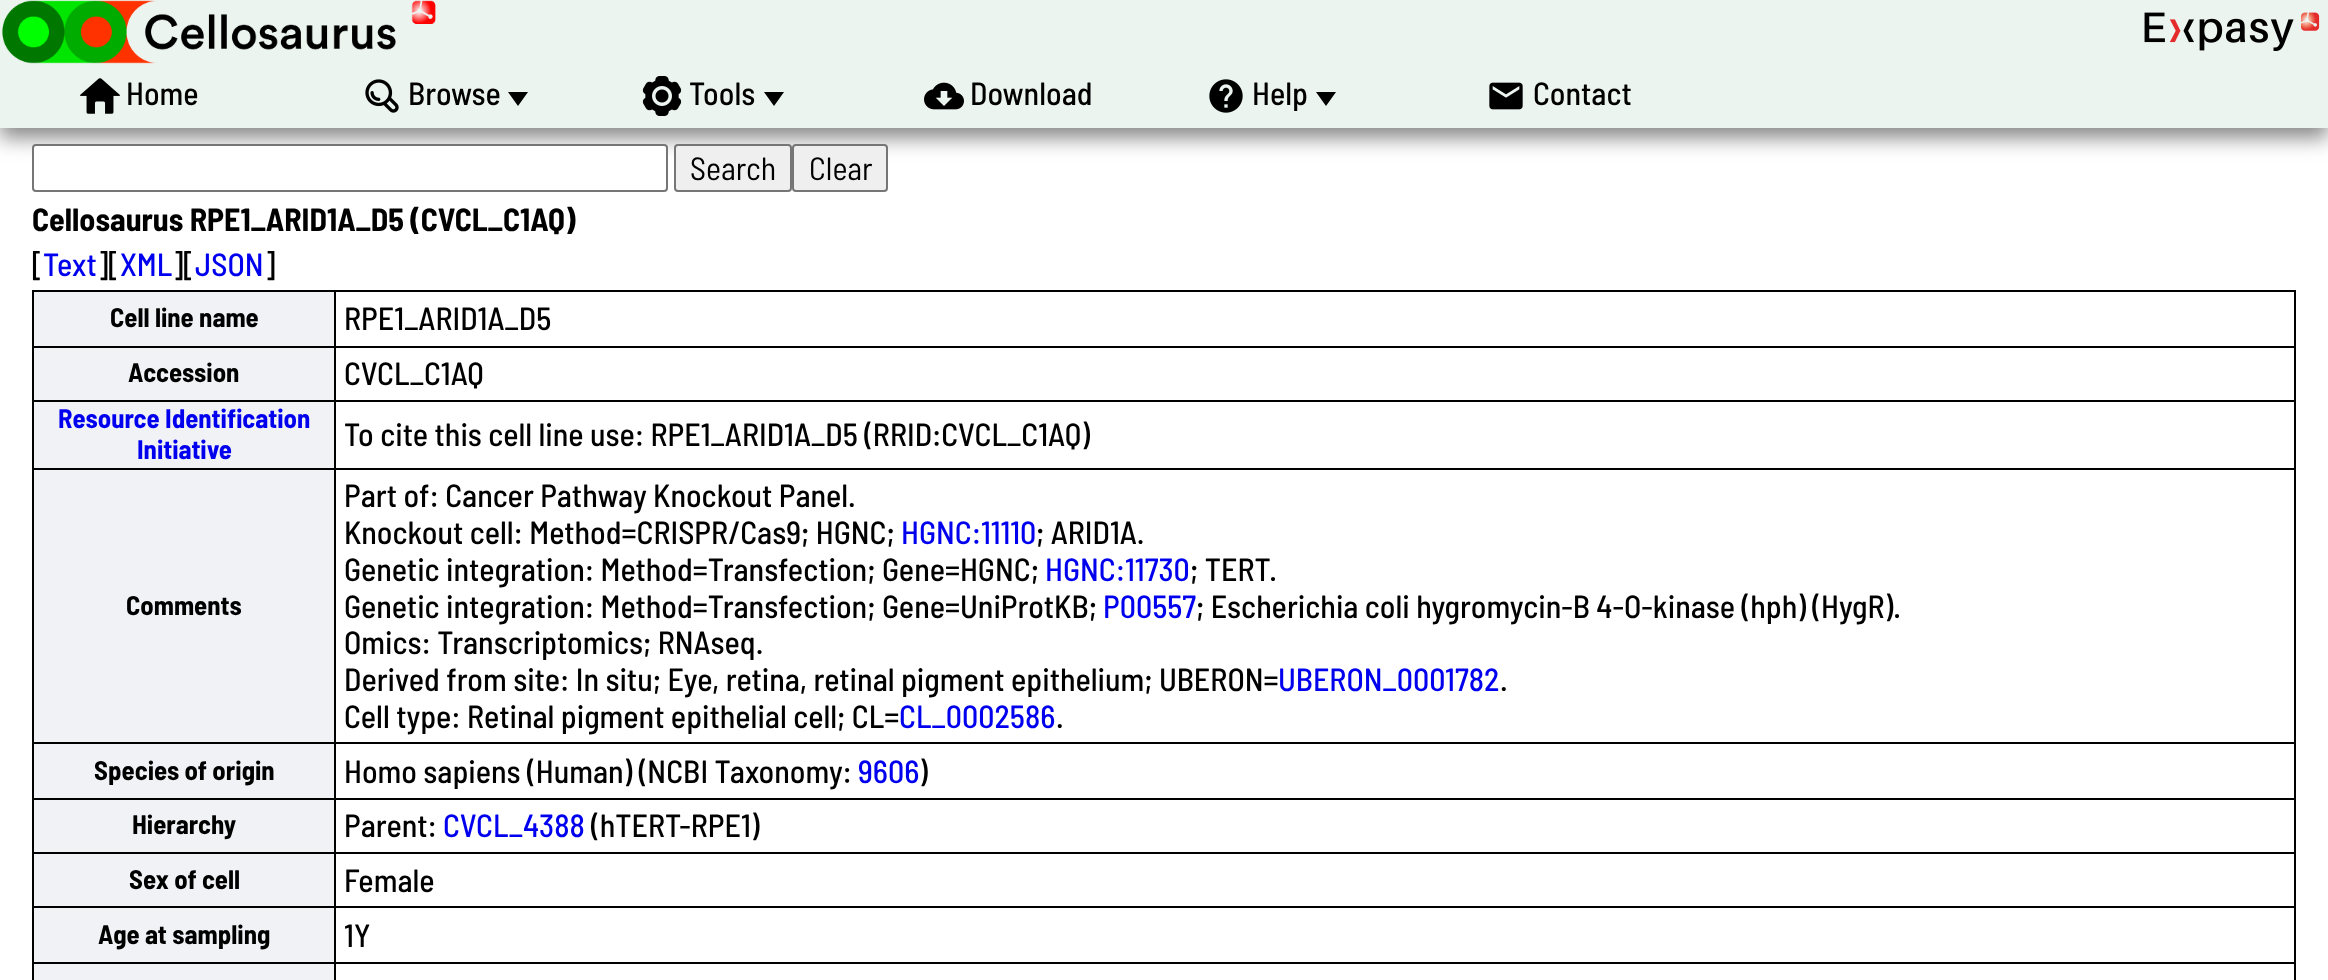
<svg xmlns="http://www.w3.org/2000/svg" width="2328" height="980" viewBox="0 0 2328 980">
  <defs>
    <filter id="blur1" x="-50%" y="-200%" width="200%" height="500%"><feGaussianBlur stdDeviation="10"/></filter>
  </defs>
  <rect width="100%" height="100%" fill="#ffffff"/>
  <rect x="0" y="10" width="2328" height="128" fill="#888888" filter="url(#blur1)"/>
  <rect x="0" y="0" width="2328" height="128" fill="#ecf4f0"/>
  <image x="2" y="0" width="434" height="64" href="img1.png"/>
  <image x="2144" y="12" width="176" height="39" href="img2.png"/>
  <image x="80" y="78" width="40" height="36" href="img3.png"/>
  <text x="126" y="105" font-family="Barlow Semi Condensed" font-size="32" font-weight="500" fill="#000000">Home</text>
  <image x="365" y="79" width="34" height="34" href="img4.png"/>
  <text x="408" y="105" font-family="Barlow Semi Condensed" font-size="32" font-weight="500" fill="#000000">Browse</text>
  <path d="M508 92H528L518 106Z" fill="#000000"/>
  <image x="642" y="76" width="40" height="40" href="img5.png"/>
  <text x="689" y="105" font-family="Barlow Semi Condensed" font-size="32" font-weight="500" fill="#000000">Tools</text>
  <path d="M764 92H784L774 106Z" fill="#000000"/>
  <image x="924" y="82" width="40" height="28" href="img6.png"/>
  <text x="970" y="105" font-family="Barlow Semi Condensed" font-size="32" font-weight="500" fill="#000000">Download</text>
  <image x="1209" y="79" width="34" height="34" href="img7.png"/>
  <text x="1252" y="105" font-family="Barlow Semi Condensed" font-size="32" font-weight="500" fill="#000000">Help</text>
  <path d="M1316 92H1336L1326 106Z" fill="#000000"/>
  <image x="1489" y="82" width="34" height="28" href="img8.png"/>
  <text x="1533" y="105" font-family="Barlow Semi Condensed" font-size="32" font-weight="500" fill="#000000">Contact</text>
  <rect x="33" y="145" width="634" height="46" rx="3" fill="#ffffff" stroke="#767676" stroke-width="2"/>
  <rect x="675" y="145" width="116" height="46" rx="3" fill="#efefef" stroke="#767676" stroke-width="2"/>
  <text x="690" y="180" font-family="Barlow Semi Condensed" font-size="32" fill="#000000">Search</text>
  <rect x="793" y="145" width="94" height="46" rx="3" fill="#efefef" stroke="#767676" stroke-width="2"/>
  <text x="809" y="180" font-family="Barlow Semi Condensed" font-size="32" fill="#000000">Clear</text>
  <text x="32" y="231" font-family="Barlow Semi Condensed" font-size="32" font-weight="bold" fill="#000000">Cellosaurus RPE1_ARID1A_D5 (CVCL_C1AQ)</text>
  <text x="32" y="276" font-family="Barlow Semi Condensed" font-size="32" font-weight="500" fill="#000000">[</text>
  <text x="43" y="276" font-family="Barlow Semi Condensed" font-size="32" font-weight="500" fill="#0000ee">Text</text>
  <text x="97" y="276" font-family="Barlow Semi Condensed" font-size="32" font-weight="500" fill="#000000">][</text>
  <text x="120" y="276" font-family="Barlow Semi Condensed" font-size="32" font-weight="500" fill="#0000ee">XML</text>
  <text x="172" y="276" font-family="Barlow Semi Condensed" font-size="32" font-weight="500" fill="#000000">][</text>
  <text x="195" y="276" font-family="Barlow Semi Condensed" font-size="32" font-weight="500" fill="#0000ee">JSON</text>
  <text x="264" y="276" font-family="Barlow Semi Condensed" font-size="32" font-weight="500" fill="#000000">]</text>
  <rect x="32" y="290" width="2264" height="2" fill="#000000"/>
  <rect x="2294" y="290" width="2" height="690" fill="#000000"/>
  <rect x="32" y="290" width="2" height="690" fill="#000000"/>
  <rect x="32" y="962" width="2264" height="2" fill="#000000"/>
  <rect x="34" y="964" width="300" height="16" fill="#f0f2f5"/>
  <rect x="32" y="346" width="2264" height="2" fill="#000000"/>
  <rect x="32" y="400" width="2264" height="2" fill="#000000"/>
  <rect x="32" y="468" width="2264" height="2" fill="#000000"/>
  <rect x="32" y="742" width="2264" height="2" fill="#000000"/>
  <rect x="32" y="798" width="2264" height="2" fill="#000000"/>
  <rect x="32" y="852" width="2264" height="2" fill="#000000"/>
  <rect x="32" y="906" width="2264" height="2" fill="#000000"/>
  <rect x="334" y="290" width="2" height="690" fill="#000000"/>
  <rect x="34" y="292" width="300" height="54" fill="#f0f2f5"/>
  <text x="110" y="327" font-family="Barlow Semi Condensed" font-size="26.75" font-weight="bold" fill="#000000">Cell line name</text>
  <text x="344" y="330" font-family="Barlow Semi Condensed" font-size="32" font-weight="500" fill="#000000">RPE1_ARID1A_D5</text>
  <rect x="34" y="348" width="300" height="52" fill="#f0f2f5"/>
  <text x="128" y="382" font-family="Barlow Semi Condensed" font-size="26.75" font-weight="bold" fill="#000000">Accession</text>
  <text x="344" y="385" font-family="Barlow Semi Condensed" font-size="32" font-weight="500" fill="#000000">CVCL_C1AQ</text>
  <rect x="34" y="402" width="300" height="66" fill="#f0f2f5"/>
  <text x="58" y="428" font-family="Barlow Semi Condensed" font-size="26.75" font-weight="bold" fill="#0000ee">Resource Identification</text>
  <text x="137" y="459" font-family="Barlow Semi Condensed" font-size="26.75" font-weight="bold" fill="#0000ee">Initiative</text>
  <text x="344" y="446" font-family="Barlow Semi Condensed" font-size="32" font-weight="500" fill="#000000">To cite this cell line use: RPE1_ARID1A_D5 (RRID:CVCL_C1AQ)</text>
  <rect x="34" y="470" width="300" height="272" fill="#f0f2f5"/>
  <text x="126" y="615" font-family="Barlow Semi Condensed" font-size="26.75" font-weight="bold" fill="#000000">Comments</text>
  <text x="344" y="507" font-family="Barlow Semi Condensed" font-size="32" font-weight="500" fill="#000000">Part of: Cancer Pathway Knockout Panel.</text>
  <text x="344" y="544" font-family="Barlow Semi Condensed" font-size="32" font-weight="500" fill="#000000">Knockout cell: Method=CRISPR/Cas9; HGNC;</text>
  <text x="901" y="544" font-family="Barlow Semi Condensed" font-size="32" font-weight="500" fill="#0000ee">HGNC:11110</text>
  <text x="1036" y="544" font-family="Barlow Semi Condensed" font-size="32" font-weight="500" fill="#000000">; ARID1A.</text>
  <text x="344" y="581" font-family="Barlow Semi Condensed" font-size="32" font-weight="500" fill="#000000">Genetic integration: Method=Transfection; Gene=HGNC;</text>
  <text x="1045" y="581" font-family="Barlow Semi Condensed" font-size="32" font-weight="500" fill="#0000ee">HGNC:11730</text>
  <text x="1190" y="581" font-family="Barlow Semi Condensed" font-size="32" font-weight="500" fill="#000000">; TERT.</text>
  <text x="344" y="618" font-family="Barlow Semi Condensed" font-size="32" font-weight="500" fill="#000000">Genetic integration: Method=Transfection; Gene=UniProtKB;</text>
  <text x="1103" y="618" font-family="Barlow Semi Condensed" font-size="32" font-weight="500" fill="#0000ee">P00557</text>
  <text x="1196" y="618" font-family="Barlow Semi Condensed" font-size="32" font-weight="500" fill="#000000">; Escherichia coli hygromycin-B 4-O-kinase (hph) (HygR).</text>
  <text x="344" y="654" font-family="Barlow Semi Condensed" font-size="32" font-weight="500" fill="#000000">Omics: Transcriptomics; RNAseq.</text>
  <text x="344" y="691" font-family="Barlow Semi Condensed" font-size="32" font-weight="500" fill="#000000">Derived from site: In situ; Eye, retina, retinal pigment epithelium; UBERON=</text>
  <text x="1278" y="691" font-family="Barlow Semi Condensed" font-size="32" font-weight="500" fill="#0000ee">UBERON_0001782</text>
  <text x="1500" y="691" font-family="Barlow Semi Condensed" font-size="32" font-weight="500" fill="#000000">.</text>
  <text x="344" y="728" font-family="Barlow Semi Condensed" font-size="32" font-weight="500" fill="#000000">Cell type: Retinal pigment epithelial cell; CL=</text>
  <text x="899" y="728" font-family="Barlow Semi Condensed" font-size="32" font-weight="500" fill="#0000ee">CL_0002586</text>
  <text x="1056" y="728" font-family="Barlow Semi Condensed" font-size="32" font-weight="500" fill="#000000">.</text>
  <rect x="34" y="744" width="300" height="54" fill="#f0f2f5"/>
  <text x="94" y="780" font-family="Barlow Semi Condensed" font-size="26.75" font-weight="bold" fill="#000000">Species of origin</text>
  <text x="344" y="783" font-family="Barlow Semi Condensed" font-size="32" font-weight="500" fill="#000000">Homo sapiens (Human) (NCBI Taxonomy:</text>
  <text x="858" y="783" font-family="Barlow Semi Condensed" font-size="32" font-weight="500" fill="#0000ee">9606</text>
  <text x="919" y="783" font-family="Barlow Semi Condensed" font-size="32" font-weight="500" fill="#000000">)</text>
  <rect x="34" y="800" width="300" height="52" fill="#f0f2f5"/>
  <text x="132" y="834" font-family="Barlow Semi Condensed" font-size="26.75" font-weight="bold" fill="#000000">Hierarchy</text>
  <text x="344" y="837" font-family="Barlow Semi Condensed" font-size="32" font-weight="500" fill="#000000">Parent:</text>
  <text x="443" y="837" font-family="Barlow Semi Condensed" font-size="32" font-weight="500" fill="#0000ee">CVCL_4388</text>
  <text x="591" y="837" font-family="Barlow Semi Condensed" font-size="32" font-weight="500" fill="#000000">(hTERT-RPE1)</text>
  <rect x="34" y="854" width="300" height="52" fill="#f0f2f5"/>
  <text x="129" y="889" font-family="Barlow Semi Condensed" font-size="26.75" font-weight="bold" fill="#000000">Sex of cell</text>
  <text x="344" y="892" font-family="Barlow Semi Condensed" font-size="32" font-weight="500" fill="#000000">Female</text>
  <rect x="34" y="908" width="300" height="54" fill="#f0f2f5"/>
  <text x="98" y="944" font-family="Barlow Semi Condensed" font-size="26.75" font-weight="bold" fill="#000000">Age at sampling</text>
  <text x="344" y="947" font-family="Barlow Semi Condensed" font-size="32" font-weight="500" fill="#000000">1Y</text>
</svg>
